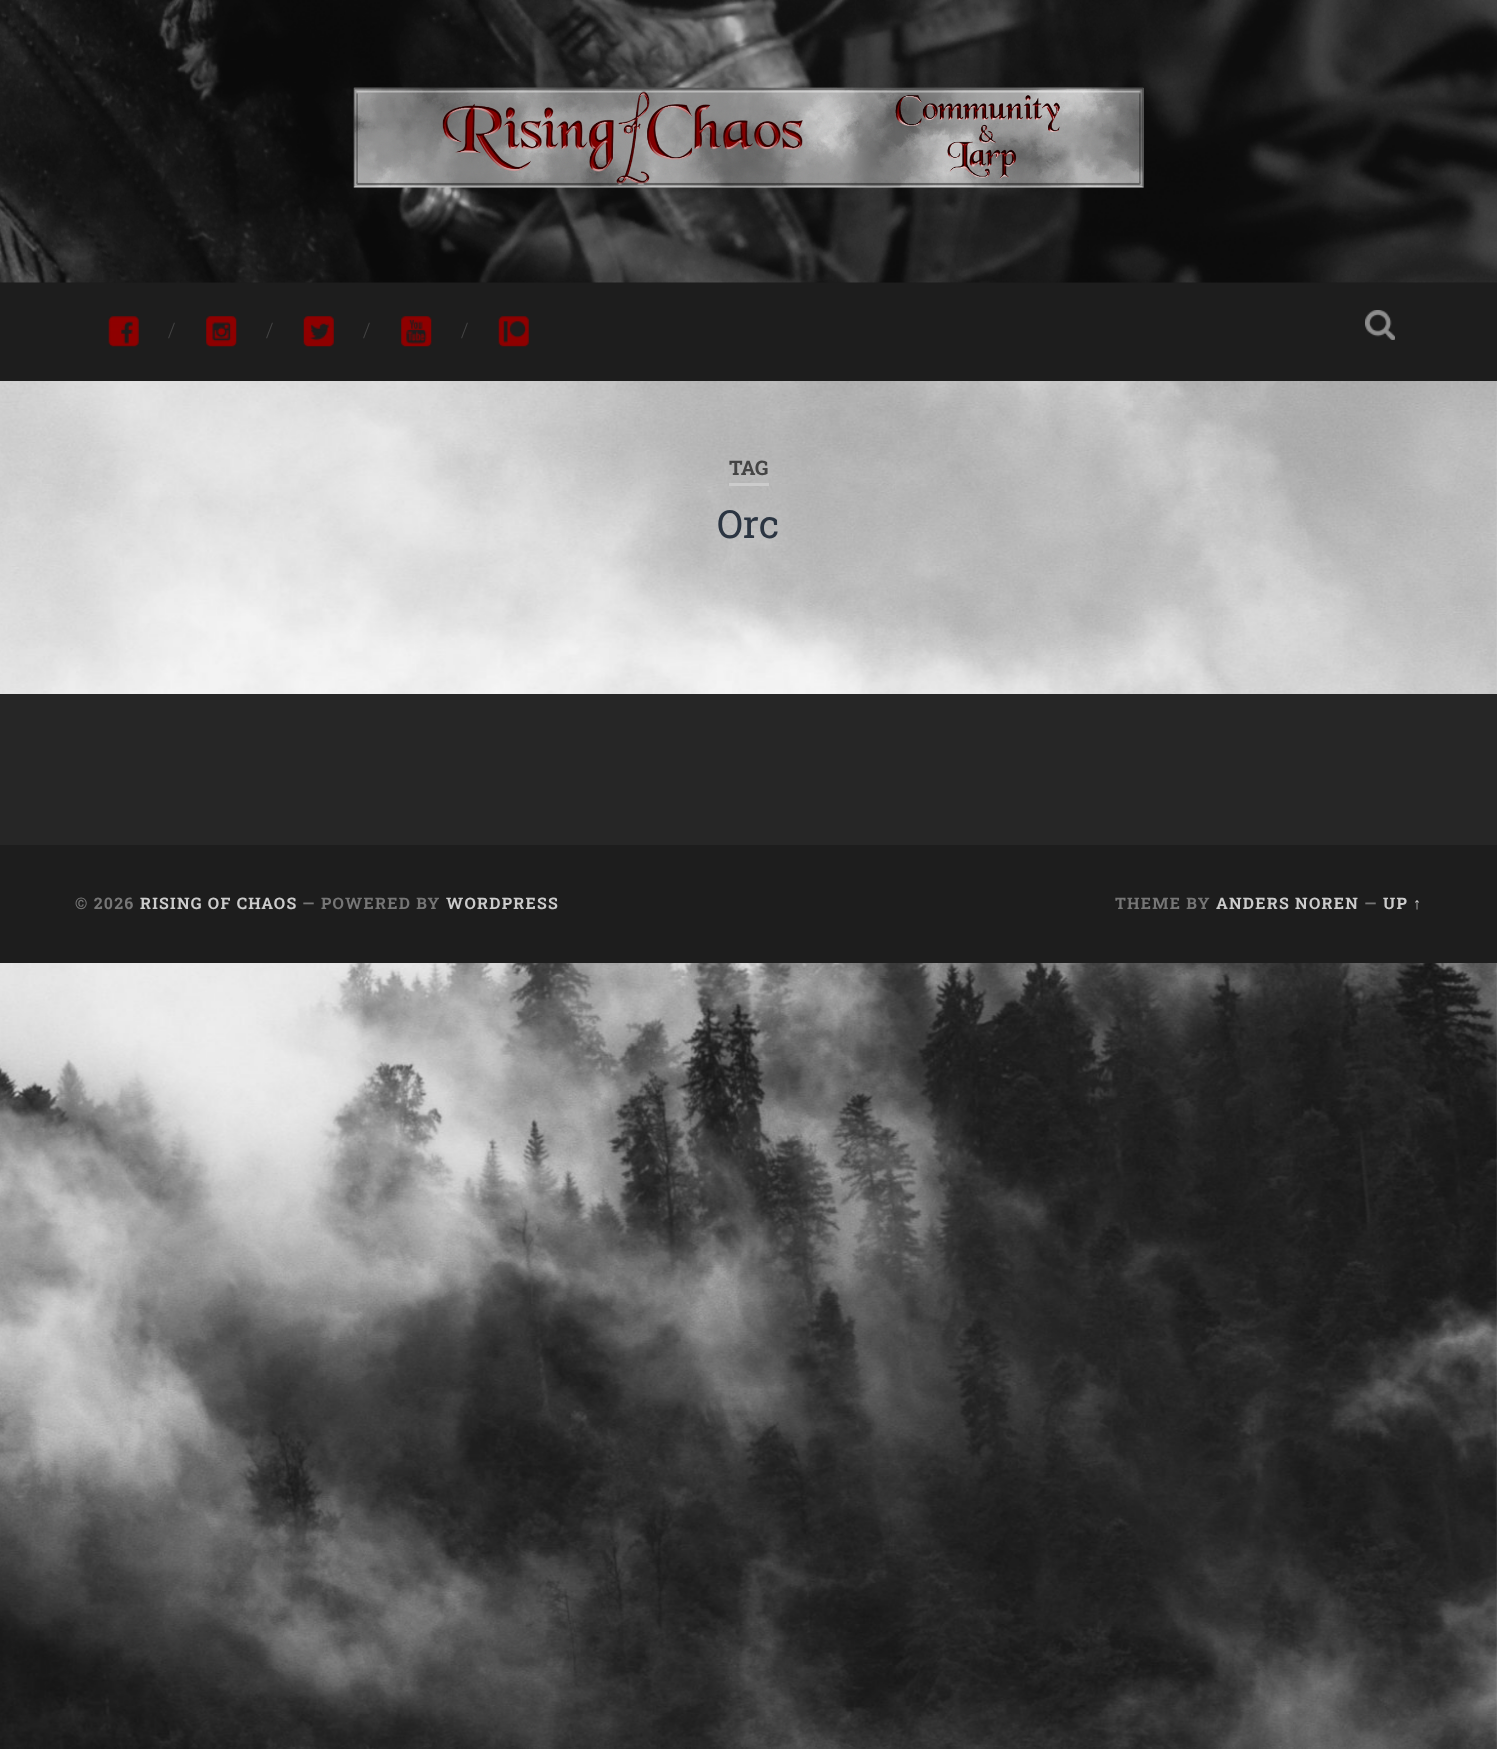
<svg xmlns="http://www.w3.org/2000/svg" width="1497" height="1749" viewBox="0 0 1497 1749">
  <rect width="100%" height="100%" fill="#ffffff"/>
  <image x="0" y="381" width="1497" height="1368" href="img1.png"/>
  <rect x="0" y="282" width="1497" height="99" fill="#1d1d1d"/>
  <image x="0" y="0" width="1497" height="283" href="img2.png"/>
  <rect x="0" y="0" width="1497" height="283" fill="#1d1d1d" fill-opacity="0.25"/>
  <image x="353" y="87" width="791" height="101" href="img3.png"/>
  <image x="108" y="316" width="31" height="31" href="img4.png"/>
  <text x="168" y="337" font-family="Roboto Slab" font-size="20" font-weight="300" fill="#444444">/</text>
  <image x="206" y="316" width="31" height="31" href="img5.png"/>
  <text x="266" y="337" font-family="Roboto Slab" font-size="20" font-weight="300" fill="#444444">/</text>
  <image x="303" y="316" width="31" height="31" href="img6.png"/>
  <text x="363" y="337" font-family="Roboto Slab" font-size="20" font-weight="300" fill="#444444">/</text>
  <image x="401" y="316" width="31" height="31" href="img7.png"/>
  <text x="461" y="337" font-family="Roboto Slab" font-size="20" font-weight="300" fill="#444444">/</text>
  <image x="498" y="316" width="31" height="31" href="img8.png"/>
  <image x="1365" y="310" width="30" height="30" href="img9.png"/>
  <rect x="729" y="483" width="40" height="3" fill="#cccccc"/>
  <text x="729" y="475" font-family="Roboto Slab" font-size="20" font-weight="bold" fill="#444444">TAG</text>
  <text x="717" y="538" font-family="Roboto Slab" font-size="39" fill="#2b3542">Orc</text>
  <rect x="0" y="694" width="1497" height="151" fill="#262626"/>
  <rect x="0" y="845" width="1497" height="118" fill="#1d1d1d"/>
  <text x="75" y="909" font-family="Roboto Slab" font-size="16" font-weight="bold" letter-spacing="1.25" fill="#767676">© 2026</text>
  <text x="140" y="909" font-family="Roboto Slab" font-size="16" font-weight="bold" letter-spacing="1.25" fill="#cccccc">RISING OF CHAOS</text>
  <text x="302" y="909" font-family="Roboto Slab" font-size="16" font-weight="bold" letter-spacing="1.25" fill="#767676">— POWERED BY</text>
  <text x="446" y="909" font-family="Roboto Slab" font-size="16" font-weight="bold" letter-spacing="1.25" fill="#cccccc">WORDPRESS</text>
  <text x="1115" y="909" font-family="Roboto Slab" font-size="16" font-weight="bold" letter-spacing="1.25" fill="#767676">THEME BY</text>
  <text x="1216" y="909" font-family="Roboto Slab" font-size="16" font-weight="bold" letter-spacing="1.25" fill="#cccccc">ANDERS NOREN</text>
  <text x="1364" y="909" font-family="Roboto Slab" font-size="16" font-weight="bold" letter-spacing="1.25" fill="#767676">—</text>
  <text x="1383" y="909" font-family="Roboto Slab" font-size="16" font-weight="bold" letter-spacing="1.25" fill="#cccccc">UP</text>
  <text x="1413" y="909" font-family="Liberation Sans" font-size="16" font-weight="bold" letter-spacing="1.25" fill="#cccccc">↑</text>
</svg>
